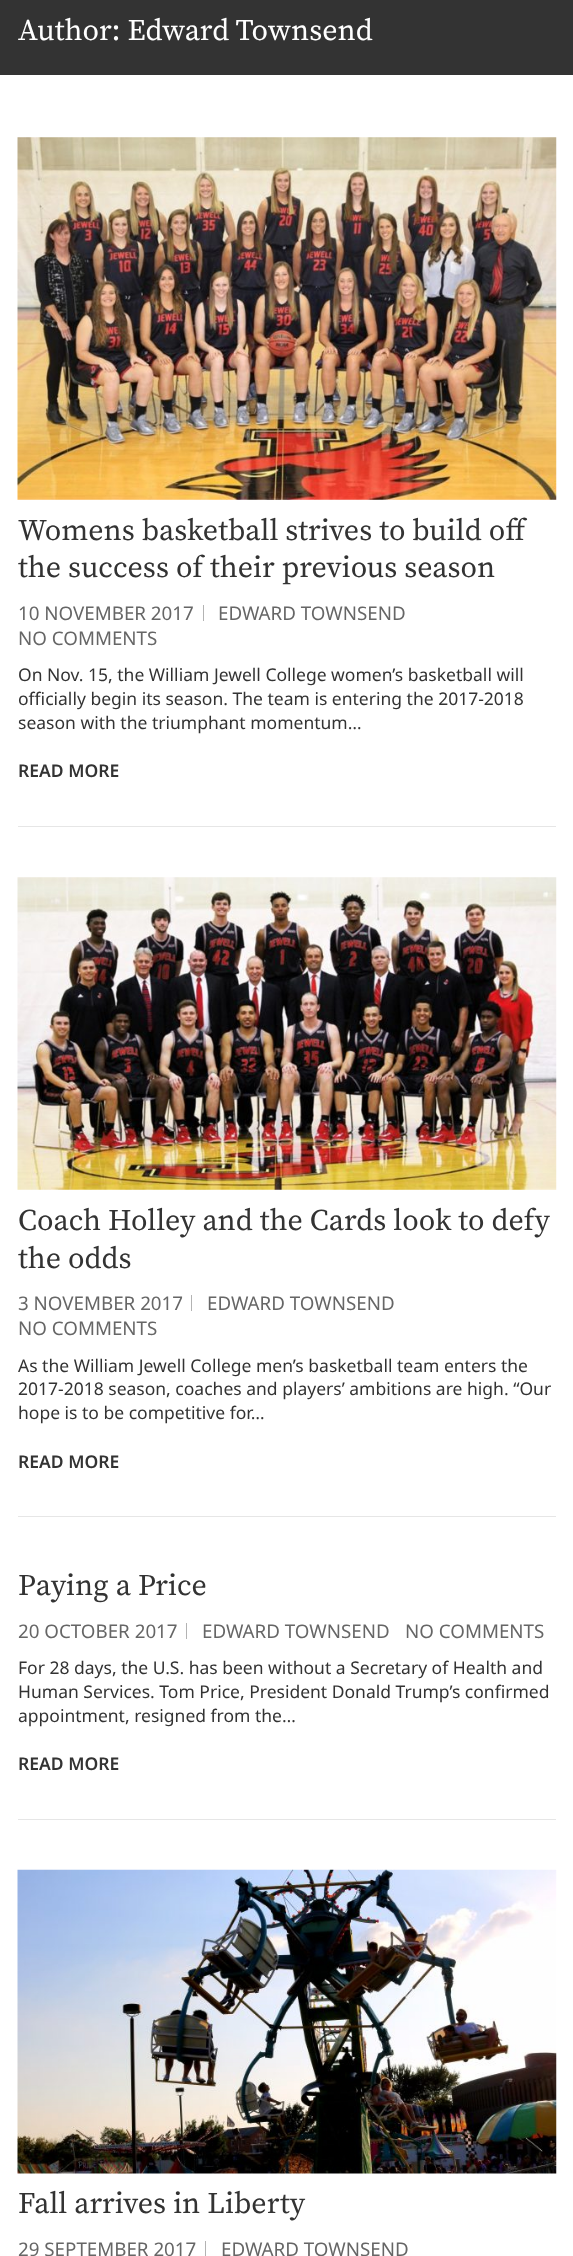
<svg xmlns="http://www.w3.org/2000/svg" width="573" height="2256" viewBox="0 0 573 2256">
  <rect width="100%" height="100%" fill="#ffffff"/>
  <rect x="0" y="0" width="573" height="75" fill="#333333"/>
  <text x="18" y="40" font-family="Source Serif Pro" font-size="30" fill="#ffffff">Author: Edward Townsend</text>
  <rect x="18" y="826" width="538" height="1" fill="#e6e6e6"/>
  <image x="17" y="137" width="540" height="363" href="img1.png"/>
  <text x="18" y="540" font-family="Source Serif Pro" font-size="30" fill="#333333">Womens basketball strives to build off</text>
  <text x="18" y="577" font-family="Source Serif Pro" font-size="30" fill="#333333">the success of their previous season</text>
  <text x="18" y="620" font-family="Noto Sans" font-size="18.75" fill="#666666">10 NOVEMBER 2017</text>
  <rect x="203" y="605" width="1" height="16" fill="#b3b3b3"/>
  <text x="218" y="620" font-family="Noto Sans" font-size="18.75" fill="#666666">EDWARD TOWNSEND</text>
  <text x="18" y="645" font-family="Noto Sans" font-size="18.75" fill="#666666">NO COMMENTS</text>
  <text x="18" y="681" font-family="Noto Sans" font-size="17.5" fill="#333333">On Nov. 15, the William Jewell College women’s basketball will</text>
  <text x="18" y="705" font-family="Noto Sans" font-size="17.5" fill="#333333">officially begin its season. The team is entering the 2017-2018</text>
  <text x="18" y="729" font-family="Noto Sans" font-size="17.5" fill="#333333">season with the triumphant momentum…</text>
  <text x="18" y="777" font-family="Noto Sans" font-size="17.5" font-weight="600" fill="#333333">READ MORE</text>
  <rect x="18" y="1516" width="538" height="1" fill="#e6e6e6"/>
  <image x="17" y="877" width="540" height="313" href="img2.png"/>
  <text x="18" y="1230" font-family="Source Serif Pro" font-size="30" fill="#333333">Coach Holley and the Cards look to defy</text>
  <text x="18" y="1268" font-family="Source Serif Pro" font-size="30" fill="#333333">the odds</text>
  <text x="18" y="1310" font-family="Noto Sans" font-size="18.75" fill="#666666">3 NOVEMBER 2017</text>
  <rect x="191" y="1295" width="1" height="16" fill="#b3b3b3"/>
  <text x="207" y="1310" font-family="Noto Sans" font-size="18.75" fill="#666666">EDWARD TOWNSEND</text>
  <text x="18" y="1335" font-family="Noto Sans" font-size="18.75" fill="#666666">NO COMMENTS</text>
  <text x="18" y="1372" font-family="Noto Sans" font-size="17.5" fill="#333333">As the William Jewell College men’s basketball team enters the</text>
  <text x="18" y="1395" font-family="Noto Sans" font-size="17.5" fill="#333333">2017-2018 season, coaches and players’ ambitions are high. “Our</text>
  <text x="18" y="1419" font-family="Noto Sans" font-size="17.5" fill="#333333">hope is to be competitive for…</text>
  <text x="18" y="1468" font-family="Noto Sans" font-size="17.5" font-weight="600" fill="#333333">READ MORE</text>
  <rect x="18" y="1819" width="538" height="1" fill="#e6e6e6"/>
  <text x="18" y="1595" font-family="Source Serif Pro" font-size="30" fill="#333333">Paying a Price</text>
  <text x="18" y="1638" font-family="Noto Sans" font-size="18.75" fill="#666666">20 OCTOBER 2017</text>
  <rect x="186" y="1623" width="1" height="16" fill="#b3b3b3"/>
  <text x="202" y="1638" font-family="Noto Sans" font-size="18.75" fill="#666666">EDWARD TOWNSEND</text>
  <text x="405" y="1638" font-family="Noto Sans" font-size="18.75" fill="#666666">NO COMMENTS</text>
  <text x="18" y="1674" font-family="Noto Sans" font-size="17.5" fill="#333333">For 28 days, the U.S. has been without a Secretary of Health and</text>
  <text x="18" y="1698" font-family="Noto Sans" font-size="17.5" fill="#333333">Human Services. Tom Price, President Donald Trump’s confirmed</text>
  <text x="18" y="1722" font-family="Noto Sans" font-size="17.5" fill="#333333">appointment, resigned from the…</text>
  <text x="18" y="1770" font-family="Noto Sans" font-size="17.5" font-weight="600" fill="#333333">READ MORE</text>
  <image x="17" y="1869" width="540" height="305" href="img3.png"/>
  <text x="18" y="2213" font-family="Source Serif Pro" font-size="30" fill="#333333">Fall arrives in Liberty</text>
  <text x="18" y="2256" font-family="Noto Sans" font-size="18.75" fill="#666666">29 SEPTEMBER 2017</text>
  <rect x="205" y="2241" width="1" height="15" fill="#b3b3b3"/>
  <text x="221" y="2256" font-family="Noto Sans" font-size="18.75" fill="#666666">EDWARD TOWNSEND</text>
</svg>
